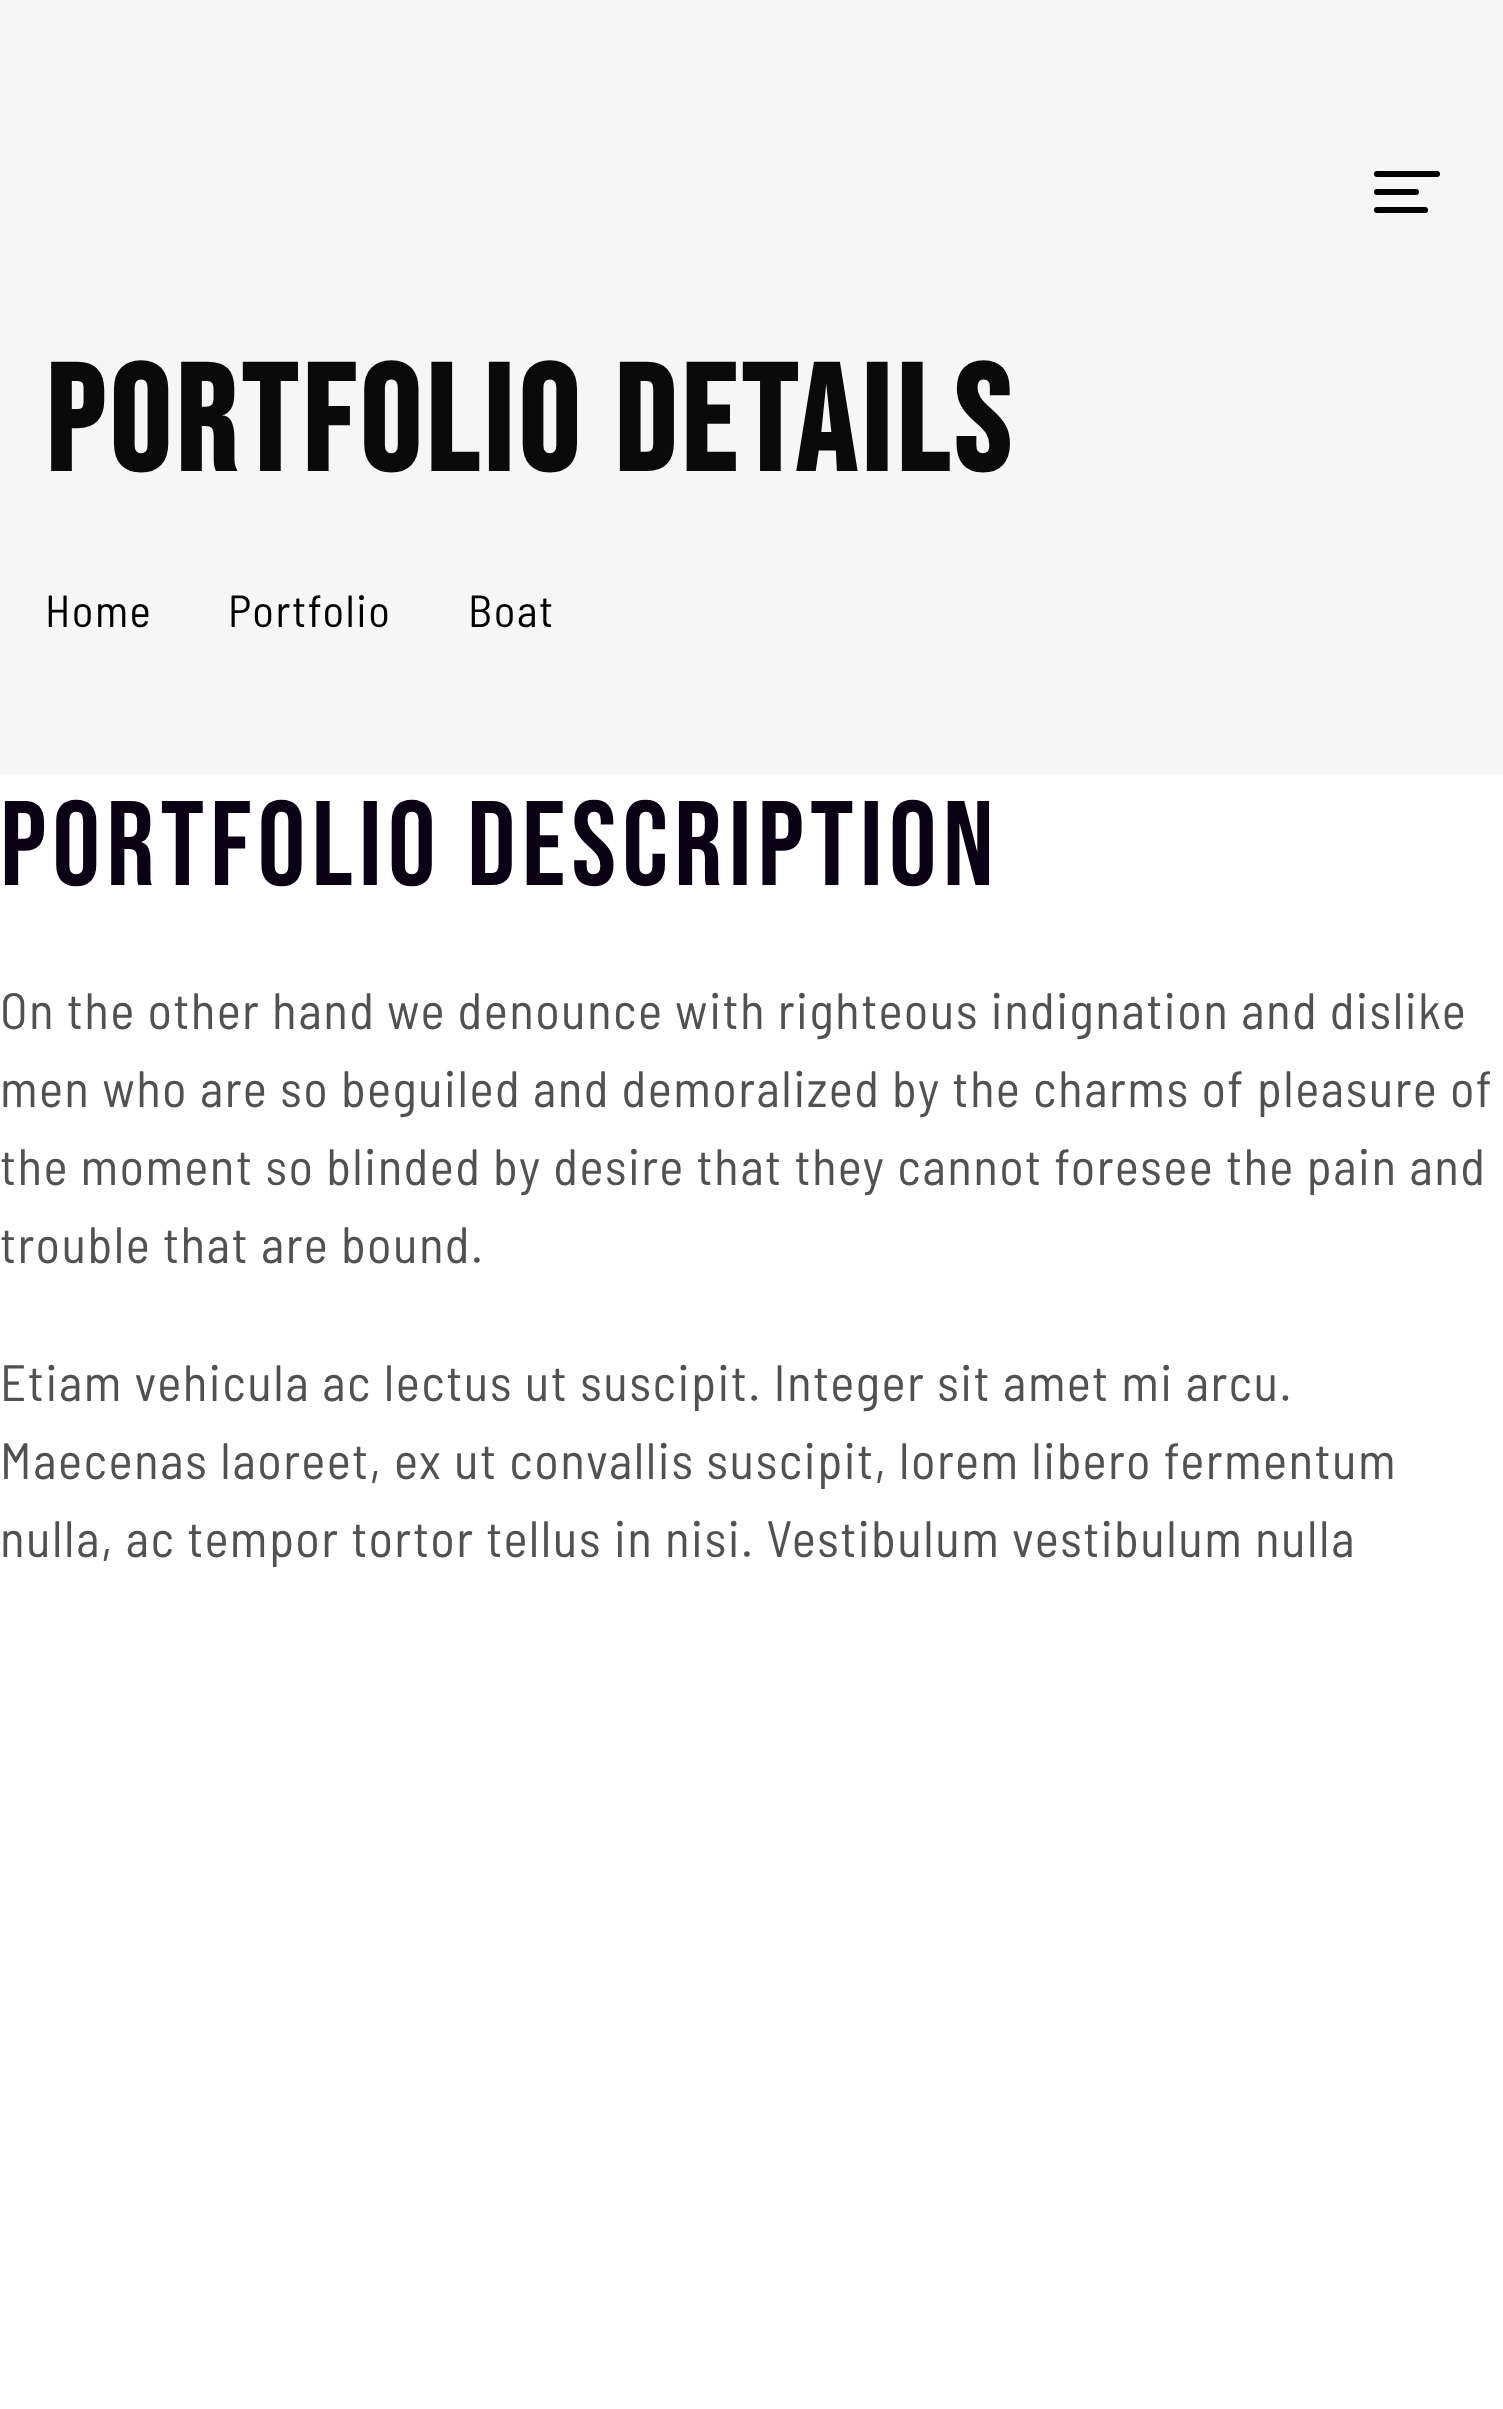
<svg xmlns="http://www.w3.org/2000/svg" width="1503" height="2409" viewBox="0 0 1503 2409">
  <rect width="100%" height="100%" fill="#ffffff"/>
  <rect x="0" y="0" width="1503" height="774" fill="#f6f6f6"/>
  <rect x="1374" y="189" width="45" height="6" rx="3" fill="#000000"/>
  <rect x="1374" y="171" width="66" height="6" rx="3" fill="#000000"/>
  <rect x="1374" y="207" width="54" height="6" rx="3" fill="#000000"/>
  <text x="45" y="471" font-family="Bebas Neue" font-size="150" font-weight="bold" letter-spacing="6" fill="#0a0a0a">PORTFOLIO DETAILS</text>
  <text x="45" y="627" font-family="Barlow Semi Condensed" font-size="45" letter-spacing="1.5" fill="#000000">Home</text>
  <text x="228" y="627" font-family="Barlow Semi Condensed" font-size="45" letter-spacing="1.5" fill="#000000">Portfolio</text>
  <text x="468" y="627" font-family="Barlow Semi Condensed" font-size="45" letter-spacing="1.5" fill="#000000">Boat</text>
  <text x="0" y="885" font-family="Bebas Neue" font-size="120" letter-spacing="6" fill="#0a0114">Portfolio Description</text>
  <text x="0" y="1029" font-family="Barlow Semi Condensed" font-size="51" letter-spacing="1.5" fill="#515151">On the other hand we denounce with righteous indignation and dislike</text>
  <text x="0" y="1107" font-family="Barlow Semi Condensed" font-size="51" letter-spacing="1.5" fill="#515151">men who are so beguiled and demoralized by the charms of pleasure of</text>
  <text x="0" y="1185" font-family="Barlow Semi Condensed" font-size="51" letter-spacing="1.5" fill="#515151">the moment so blinded by desire that they cannot foresee the pain and</text>
  <text x="0" y="1263" font-family="Barlow Semi Condensed" font-size="51" letter-spacing="1.5" fill="#515151">trouble that are bound.</text>
  <text x="0" y="1401" font-family="Barlow Semi Condensed" font-size="51" letter-spacing="1.5" fill="#515151">Etiam vehicula ac lectus ut suscipit. Integer sit amet mi arcu.</text>
  <text x="0" y="1479" font-family="Barlow Semi Condensed" font-size="51" letter-spacing="1.5" fill="#515151">Maecenas laoreet, ex ut convallis suscipit, lorem libero fermentum</text>
  <text x="0" y="1557" font-family="Barlow Semi Condensed" font-size="51" letter-spacing="1.5" fill="#515151">nulla, ac tempor tortor tellus in nisi. Vestibulum vestibulum nulla</text>
</svg>
